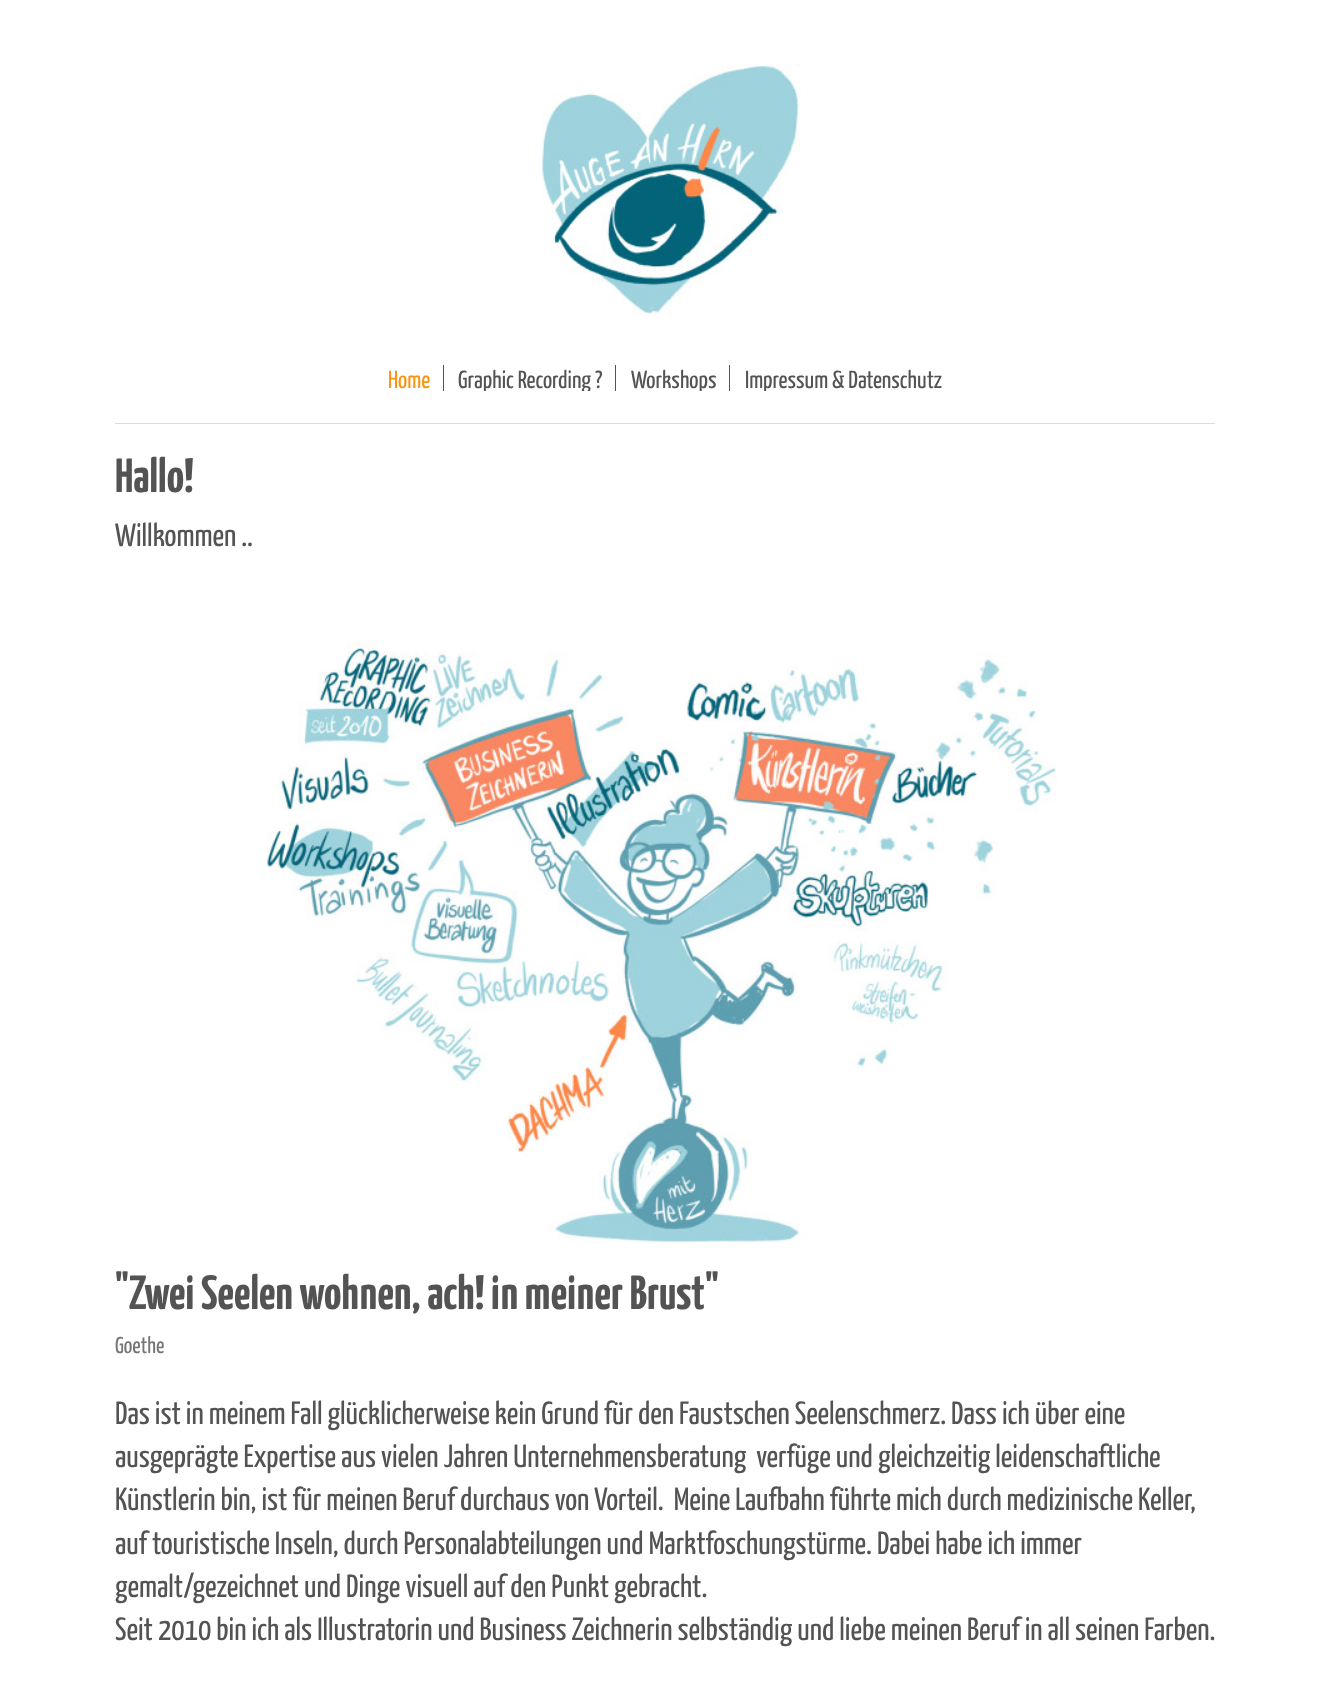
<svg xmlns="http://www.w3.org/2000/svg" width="1329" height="1698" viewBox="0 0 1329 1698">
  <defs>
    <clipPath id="clip1"><rect x="446" y="365" width="169" height="26"/></clipPath>
    <clipPath id="clip2"><rect x="619" y="365" width="110" height="26"/></clipPath>
    <clipPath id="clip3"><rect x="733" y="365" width="222" height="26"/></clipPath>
  </defs>
  <rect width="100%" height="100%" fill="#ffffff"/>
  <image x="542" y="64" width="259" height="250" href="img1.png"/>
  <rect x="115" y="423" width="1100" height="1" fill="#dddddd"/>
  <rect x="443" y="365" width="1" height="26" fill="#535353"/>
  <text x="388" y="388" font-family="Yanone Kaffeesatz" font-size="24.75" fill="#f99312">Home</text>
  <rect x="615" y="365" width="1" height="26" fill="#535353"/>
  <g clip-path="url(#clip1)">
    <text x="458" y="388" font-family="Yanone Kaffeesatz" font-size="24.75" fill="#535353">Graphic Recording ?</text>
  </g>
  <rect x="729" y="365" width="1" height="26" fill="#535353"/>
  <g clip-path="url(#clip2)">
    <text x="631" y="388" font-family="Yanone Kaffeesatz" font-size="24.75" fill="#535353">Workshops</text>
  </g>
  <g clip-path="url(#clip3)">
    <text x="745" y="388" font-family="Yanone Kaffeesatz" font-size="24.75" fill="#535353">Impressum &amp; Datenschutz</text>
  </g>
  <text x="115" y="492" font-family="Yanone Kaffeesatz" font-size="48" font-weight="bold" fill="#535353">Hallo!</text>
  <text x="115" y="546" font-family="Yanone Kaffeesatz" font-size="32" fill="#535353">Willkommen ..</text>
  <image x="267" y="641" width="790" height="602" href="img2.png"/>
  <text x="115" y="1309" font-family="Yanone Kaffeesatz" font-size="48" font-weight="bold" fill="#535353">"Zwei Seelen wohnen, ach! in meiner Brust"</text>
  <text x="115" y="1353" font-family="Yanone Kaffeesatz" font-size="23" fill="#757575">Goethe</text>
  <text x="115" y="1424" font-family="Yanone Kaffeesatz" font-size="32" fill="#535353">Das ist in meinem Fall glücklicherweise kein Grund für den Faustschen Seelenschmerz. Dass ich über eine</text>
  <text x="115" y="1467" font-family="Yanone Kaffeesatz" font-size="32" fill="#535353" xml:space="preserve">ausgeprägte Expertise aus vielen Jahren Unternehmensberatung  verfüge und gleichzeitig leidenschaftliche</text>
  <text x="115" y="1510" font-family="Yanone Kaffeesatz" font-size="32" fill="#535353" xml:space="preserve">Künstlerin bin, ist für meinen Beruf durchaus von Vorteil.  Meine Laufbahn führte mich durch medizinische Keller,</text>
  <text x="115" y="1554" font-family="Yanone Kaffeesatz" font-size="32" fill="#535353">auf touristische Inseln, durch Personalabteilungen und Marktfoschungstürme. Dabei habe ich immer</text>
  <text x="115" y="1597" font-family="Yanone Kaffeesatz" font-size="32" fill="#535353">gemalt/gezeichnet und Dinge visuell auf den Punkt gebracht.</text>
  <text x="115" y="1640" font-family="Yanone Kaffeesatz" font-size="32" fill="#535353">Seit 2010 bin ich als Illustratorin und Business Zeichnerin selbständig und liebe meinen Beruf in all seinen Farben.</text>
</svg>
